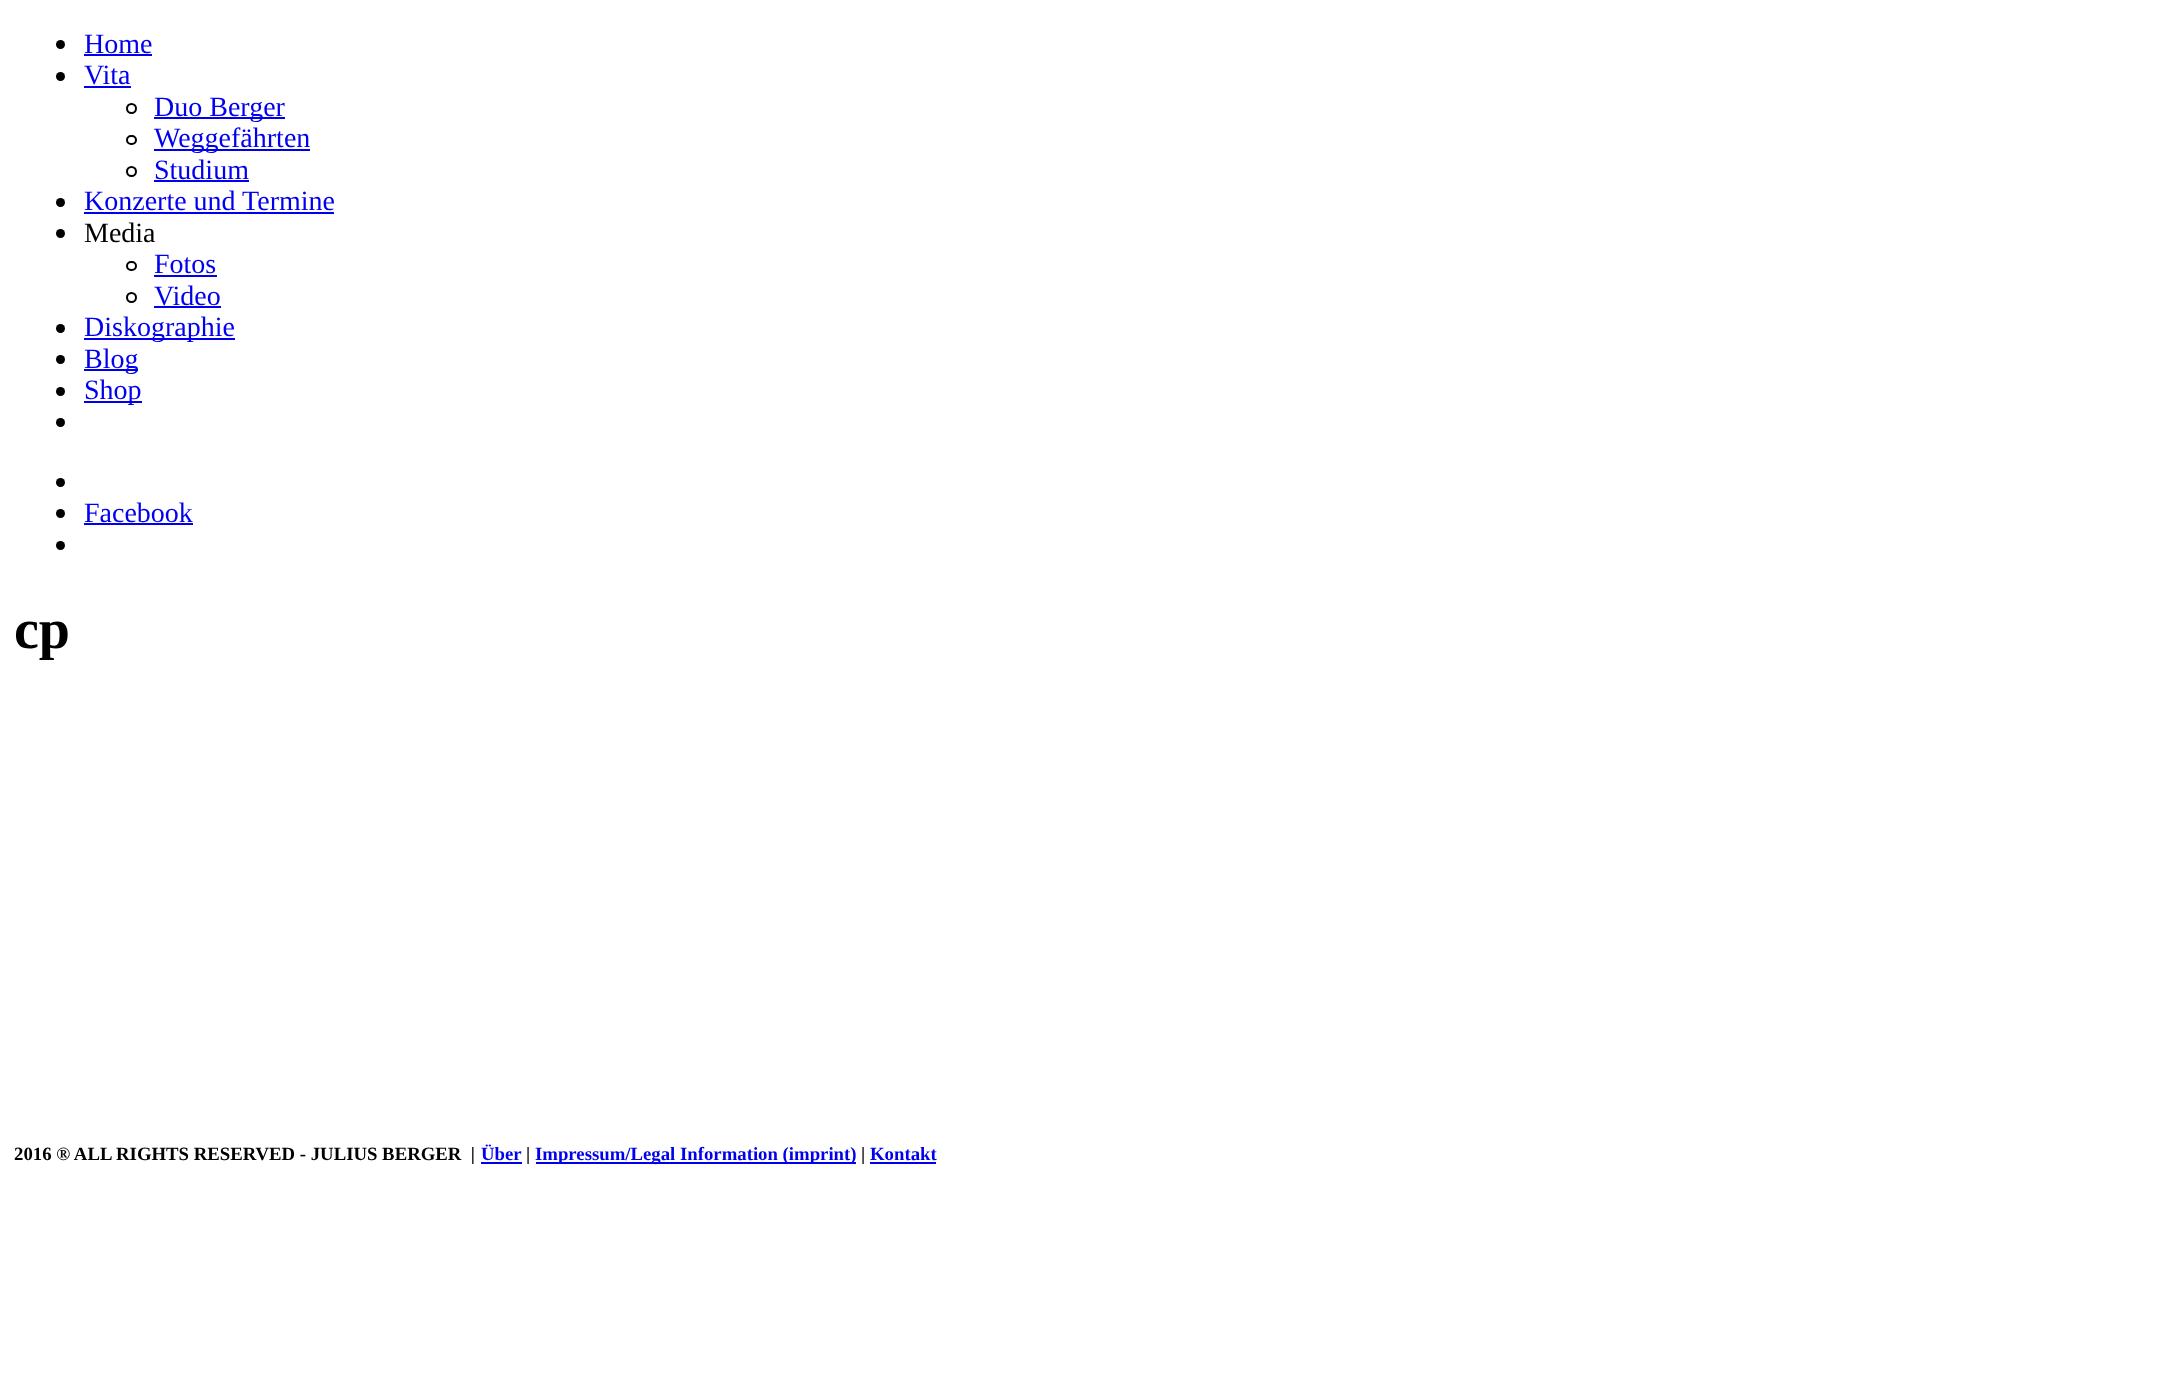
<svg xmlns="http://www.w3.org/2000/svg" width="2165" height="1383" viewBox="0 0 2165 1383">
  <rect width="100%" height="100%" fill="#ffffff"/>
  <circle cx="60.5" cy="44.5" r="4.5" fill="#000000"/>
  <text x="84" y="53" font-family="Liberation Serif" font-size="28" fill="#0000ee">Home</text>
  <rect x="84" y="54" width="68" height="2" fill="#0000ee"/>
  <circle cx="60.5" cy="76.5" r="4.5" fill="#000000"/>
  <text x="84" y="84" font-family="Liberation Serif" font-size="28" fill="#0000ee">Vita</text>
  <rect x="84" y="86" width="47" height="2" fill="#0000ee"/>
  <circle cx="131.5" cy="108.5" r="4.5" fill="none" stroke="#000000" stroke-width="2"/>
  <rect x="154" y="117" width="131" height="2" fill="#0000ee"/>
  <text x="154" y="116" font-family="Liberation Serif" font-size="28" fill="#0000ee">Duo Berger</text>
  <rect x="127" y="136" width="9" height="8" rx="4" fill="none" stroke="#000000" stroke-width="2"/>
  <rect x="154" y="149" width="156" height="2" fill="#0000ee"/>
  <text x="154" y="147" font-family="Liberation Serif" font-size="28" fill="#0000ee">Weggefährten</text>
  <circle cx="131.5" cy="171.5" r="4.5" fill="none" stroke="#000000" stroke-width="2"/>
  <text x="154" y="179" font-family="Liberation Serif" font-size="28" fill="#0000ee">Studium</text>
  <rect x="154" y="180" width="95" height="2" fill="#0000ee"/>
  <circle cx="60.5" cy="202.5" r="4.5" fill="#000000"/>
  <text x="84" y="210" font-family="Liberation Serif" font-size="28" fill="#0000ee">Konzerte und Termine</text>
  <rect x="84" y="212" width="250" height="2" fill="#0000ee"/>
  <circle cx="60.5" cy="233.5" r="4.5" fill="#000000"/>
  <text x="84" y="242" font-family="Liberation Serif" font-size="28" fill="#000000">Media</text>
  <rect x="127" y="262" width="9" height="8" rx="4" fill="none" stroke="#000000" stroke-width="2"/>
  <text x="154" y="273" font-family="Liberation Serif" font-size="28" fill="#0000ee">Fotos</text>
  <rect x="154" y="275" width="63" height="2" fill="#0000ee"/>
  <circle cx="131.5" cy="297.5" r="4.5" fill="none" stroke="#000000" stroke-width="2"/>
  <text x="154" y="305" font-family="Liberation Serif" font-size="28" fill="#0000ee">Video</text>
  <rect x="154" y="306" width="67" height="2" fill="#0000ee"/>
  <circle cx="60.5" cy="328.5" r="4.5" fill="#000000"/>
  <rect x="84" y="338" width="151" height="2" fill="#0000ee"/>
  <text x="84" y="336" font-family="Liberation Serif" font-size="28" fill="#0000ee">Diskographie</text>
  <circle cx="60.5" cy="359.5" r="4.5" fill="#000000"/>
  <rect x="84" y="369" width="54" height="2" fill="#0000ee"/>
  <text x="84" y="368" font-family="Liberation Serif" font-size="28" fill="#0000ee">Blog</text>
  <circle cx="60.5" cy="391.5" r="4.5" fill="#000000"/>
  <rect x="84" y="401" width="58" height="2" fill="#0000ee"/>
  <text x="84" y="399" font-family="Liberation Serif" font-size="28" fill="#0000ee">Shop</text>
  <circle cx="60.5" cy="422.5" r="4.5" fill="#000000"/>
  <circle cx="60.5" cy="482.5" r="4.5" fill="#000000"/>
  <circle cx="60.5" cy="513.5" r="4.5" fill="#000000"/>
  <text x="84" y="522" font-family="Liberation Serif" font-size="28" fill="#0000ee">Facebook</text>
  <rect x="84" y="523" width="109" height="2" fill="#0000ee"/>
  <circle cx="60.5" cy="545.5" r="4.5" fill="#000000"/>
  <text x="14" y="648" font-family="Liberation Serif" font-size="56" font-weight="bold" fill="#000000">cp</text>
  <text x="14" y="1160" font-family="Liberation Serif" font-size="18.75" font-weight="bold" fill="#000000" xml:space="preserve">2016 ® ALL RIGHTS RESERVED - JULIUS BERGER  |</text>
  <text x="481" y="1160" font-family="Liberation Serif" font-size="18.75" font-weight="bold" fill="#0000ee">Über</text>
  <rect x="481" y="1162" width="41" height="2" fill="#0000ee"/>
  <text x="526" y="1160" font-family="Liberation Serif" font-size="18.75" font-weight="bold" fill="#000000">|</text>
  <rect x="536" y="1162" width="320" height="2" fill="#0000ee"/>
  <text x="535" y="1160" font-family="Liberation Serif" font-size="18.75" font-weight="bold" fill="#0000ee">Impressum/Legal Information (imprint)</text>
  <text x="861" y="1160" font-family="Liberation Serif" font-size="18.75" font-weight="bold" fill="#000000">|</text>
  <text x="870" y="1160" font-family="Liberation Serif" font-size="18.75" font-weight="bold" fill="#0000ee">Kontakt</text>
  <rect x="870" y="1162" width="66" height="2" fill="#0000ee"/>
</svg>
